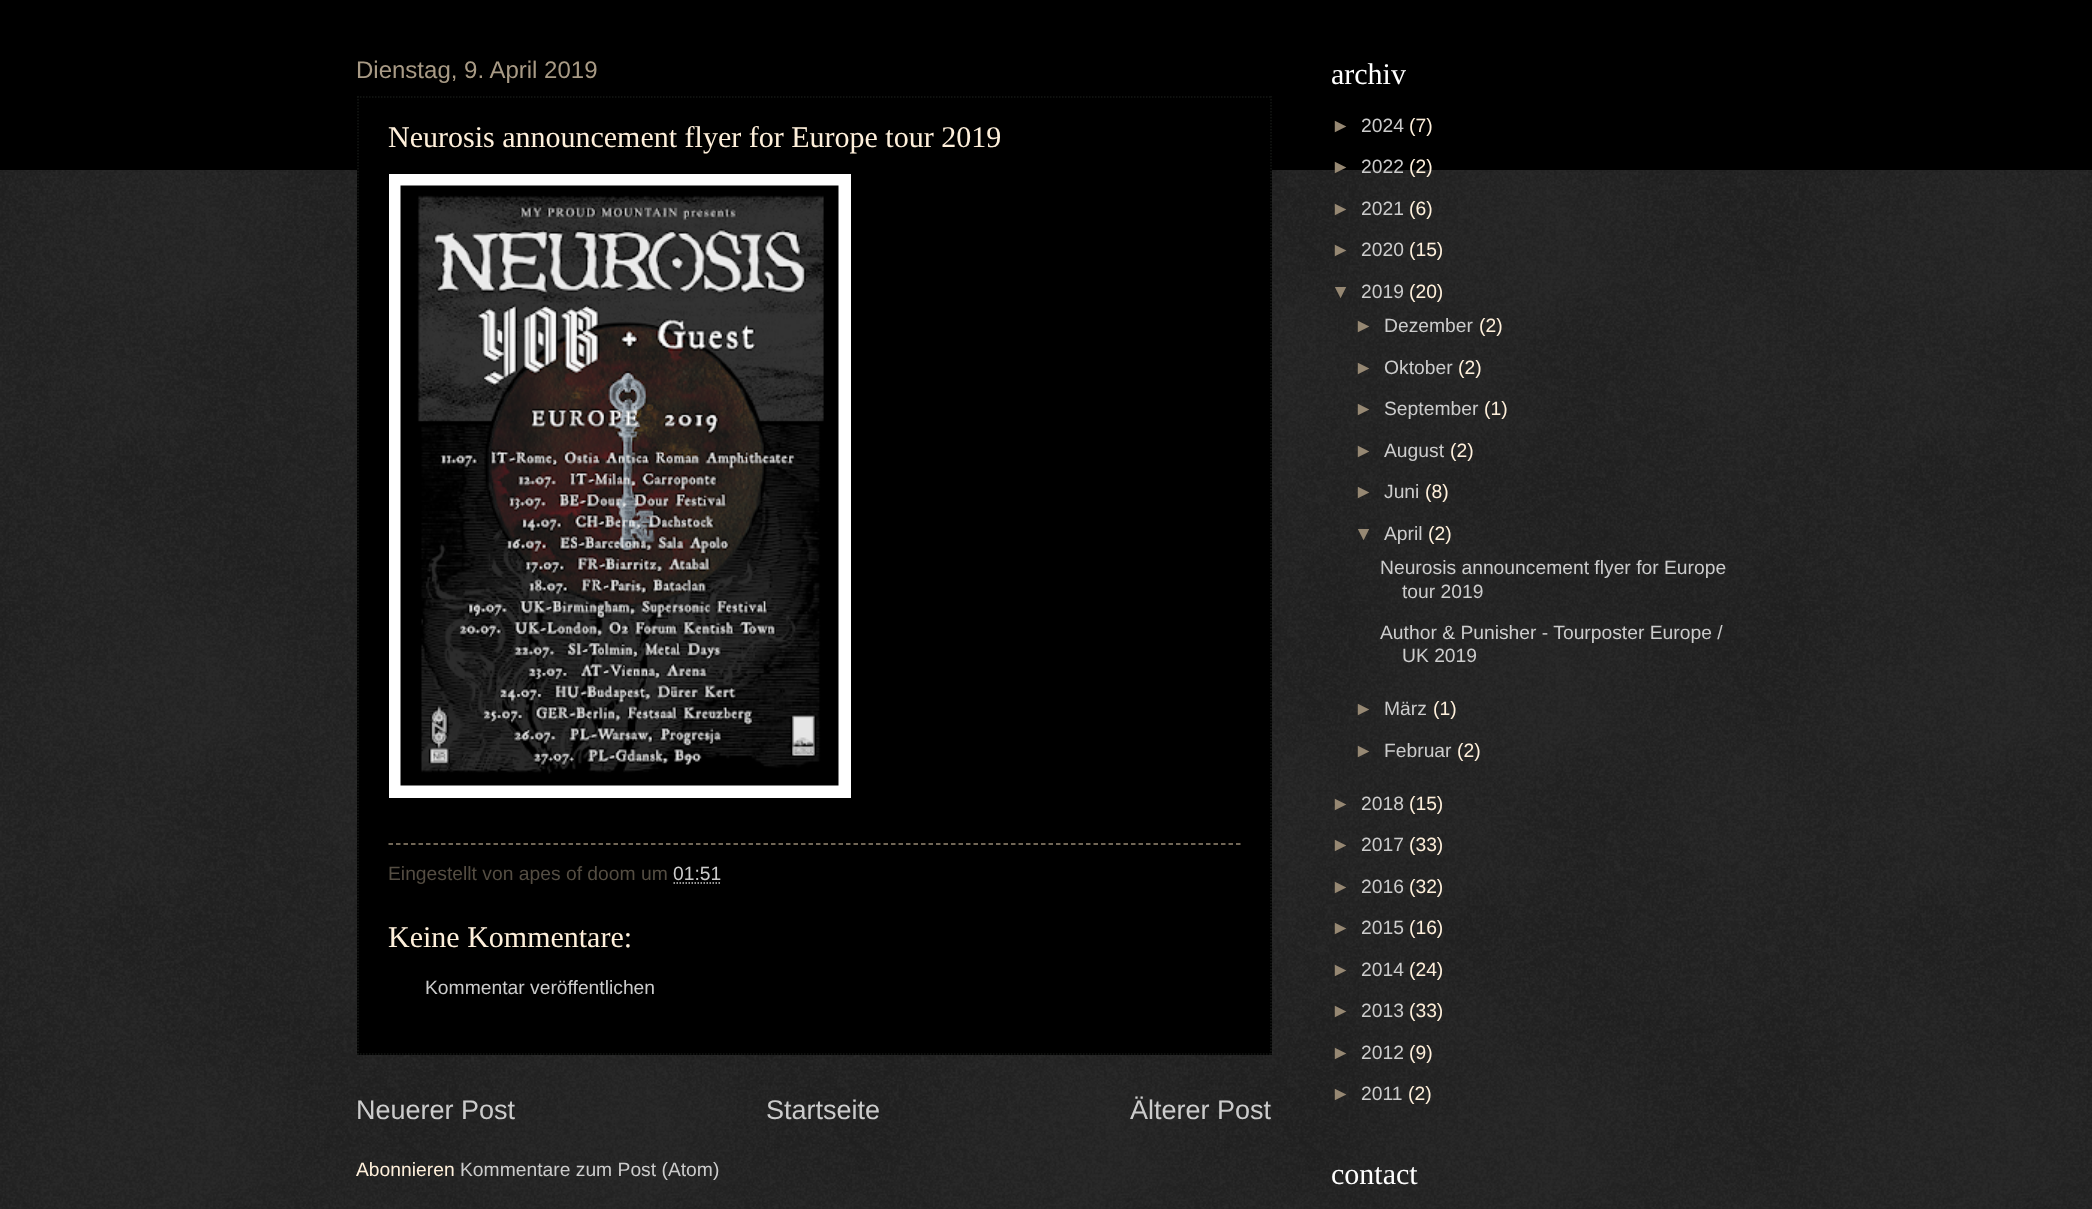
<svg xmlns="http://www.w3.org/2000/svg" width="2092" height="1209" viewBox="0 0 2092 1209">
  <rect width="100%" height="100%" fill="#000000"/>
  <image x="0" y="170" width="2092" height="1039" href="img1.png"/>
  <text x="356" y="78" font-family="Liberation Sans" font-size="24" fill="#a89a85">Dienstag, 9. April 2019</text>
  <rect x="357" y="170" width="915" height="885" fill="#000000"/>
  <path d="M357 97H1272" fill="none" stroke="#141715" stroke-width="1.5" stroke-dasharray="1.5 1.5"/>
  <path d="M1271 96V1054.5" fill="none" stroke="#141715" stroke-width="1.5" stroke-dasharray="1.5 1.5"/>
  <path d="M357 1054H1272" fill="none" stroke="#141715" stroke-width="1.5" stroke-dasharray="1.5 1.5"/>
  <path d="M358 96V1054.5" fill="none" stroke="#141715" stroke-width="1.5" stroke-dasharray="1.5 1.5"/>
  <text x="388" y="147" font-family="Liberation Serif" font-size="30" fill="#fff0db">Neurosis announcement flyer for Europe tour 2019</text>
  <rect x="389" y="174" width="462" height="624" fill="#ffffff"/>
  <image x="400" y="185" width="439" height="601" href="img2.png"/>
  <path d="M388.5 844H1240.5" fill="none" stroke="#968873" stroke-width="1.5" stroke-dasharray="4.5 3"/>
  <text x="388" y="880" font-family="Liberation Sans" font-size="19.3" fill="#544d42">Eingestellt von apes of doom um</text>
  <text x="673" y="880" font-family="Liberation Sans" font-size="19.3" fill="#cccccc">01:51</text>
  <path d="M673.5 883H721.5" fill="none" stroke="#cccccc" stroke-width="1.5" stroke-dasharray="1.5 1.5"/>
  <text x="388" y="947" font-family="Liberation Serif" font-size="30" fill="#fff0db">Keine Kommentare:</text>
  <text x="425" y="994" font-family="Liberation Sans" font-size="19.3" fill="#cccccc">Kommentar veröffentlichen</text>
  <text x="356" y="1119" font-family="Liberation Sans" font-size="27" fill="#cccccc">Neuerer Post</text>
  <text x="766" y="1119" font-family="Liberation Sans" font-size="27" fill="#cccccc">Startseite</text>
  <text x="1130" y="1119" font-family="Liberation Sans" font-size="27" fill="#cccccc">Älterer Post</text>
  <text x="356" y="1176" font-family="Liberation Sans" font-size="19.3" fill="#fff0db">Abonnieren</text>
  <text x="460" y="1176" font-family="Liberation Sans" font-size="19.3" fill="#cccccc">Kommentare zum Post (Atom)</text>
  <text x="1331" y="84" font-family="Liberation Serif" font-size="30" fill="#ffffff">archiv</text>
  <text x="1331" y="132" font-family="Liberation Sans" font-size="19.3" fill="#968873">►</text>
  <text x="1361" y="132" font-family="Liberation Sans" font-size="19.3" fill="#cccccc">2024</text>
  <text x="1409" y="132" font-family="Liberation Sans" font-size="19.3" fill="#fff0db">(7)</text>
  <text x="1331" y="173" font-family="Liberation Sans" font-size="19.3" fill="#968873">►</text>
  <text x="1361" y="173" font-family="Liberation Sans" font-size="19.3" fill="#cccccc">2022</text>
  <text x="1409" y="173" font-family="Liberation Sans" font-size="19.3" fill="#fff0db">(2)</text>
  <text x="1331" y="215" font-family="Liberation Sans" font-size="19.3" fill="#968873">►</text>
  <text x="1361" y="215" font-family="Liberation Sans" font-size="19.3" fill="#cccccc">2021</text>
  <text x="1409" y="215" font-family="Liberation Sans" font-size="19.3" fill="#fff0db">(6)</text>
  <text x="1331" y="256" font-family="Liberation Sans" font-size="19.3" fill="#968873">►</text>
  <text x="1361" y="256" font-family="Liberation Sans" font-size="19.3" fill="#cccccc">2020</text>
  <text x="1409" y="256" font-family="Liberation Sans" font-size="19.3" fill="#fff0db">(15)</text>
  <text x="1331" y="298" font-family="Liberation Sans" font-size="19.3" fill="#968873">▼</text>
  <text x="1361" y="298" font-family="Liberation Sans" font-size="19.3" fill="#cccccc">2019</text>
  <text x="1409" y="298" font-family="Liberation Sans" font-size="19.3" fill="#fff0db">(20)</text>
  <text x="1354" y="332" font-family="Liberation Sans" font-size="19.3" fill="#968873">►</text>
  <text x="1384" y="332" font-family="Liberation Sans" font-size="19.3" fill="#cccccc">Dezember</text>
  <text x="1479" y="332" font-family="Liberation Sans" font-size="19.3" fill="#fff0db">(2)</text>
  <text x="1354" y="374" font-family="Liberation Sans" font-size="19.3" fill="#968873">►</text>
  <text x="1384" y="374" font-family="Liberation Sans" font-size="19.3" fill="#cccccc">Oktober</text>
  <text x="1458" y="374" font-family="Liberation Sans" font-size="19.3" fill="#fff0db">(2)</text>
  <text x="1354" y="415" font-family="Liberation Sans" font-size="19.3" fill="#968873">►</text>
  <text x="1384" y="415" font-family="Liberation Sans" font-size="19.3" fill="#cccccc">September</text>
  <text x="1484" y="415" font-family="Liberation Sans" font-size="19.3" fill="#fff0db">(1)</text>
  <text x="1354" y="457" font-family="Liberation Sans" font-size="19.3" fill="#968873">►</text>
  <text x="1384" y="457" font-family="Liberation Sans" font-size="19.3" fill="#cccccc">August</text>
  <text x="1450" y="457" font-family="Liberation Sans" font-size="19.3" fill="#fff0db">(2)</text>
  <text x="1354" y="498" font-family="Liberation Sans" font-size="19.3" fill="#968873">►</text>
  <text x="1384" y="498" font-family="Liberation Sans" font-size="19.3" fill="#cccccc">Juni</text>
  <text x="1425" y="498" font-family="Liberation Sans" font-size="19.3" fill="#fff0db">(8)</text>
  <text x="1354" y="540" font-family="Liberation Sans" font-size="19.3" fill="#968873">▼</text>
  <text x="1384" y="540" font-family="Liberation Sans" font-size="19.3" fill="#cccccc">April</text>
  <text x="1428" y="540" font-family="Liberation Sans" font-size="19.3" fill="#fff0db">(2)</text>
  <text x="1380" y="574" font-family="Liberation Sans" font-size="19.3" fill="#cccccc">Neurosis announcement flyer for Europe</text>
  <text x="1402" y="598" font-family="Liberation Sans" font-size="19.3" fill="#cccccc">tour 2019</text>
  <text x="1380" y="639" font-family="Liberation Sans" font-size="19.3" fill="#cccccc">Author &amp; Punisher - Tourposter Europe /</text>
  <text x="1402" y="662" font-family="Liberation Sans" font-size="19.3" fill="#cccccc">UK 2019</text>
  <text x="1354" y="715" font-family="Liberation Sans" font-size="19.3" fill="#968873">►</text>
  <text x="1384" y="715" font-family="Liberation Sans" font-size="19.3" fill="#cccccc">März</text>
  <text x="1433" y="715" font-family="Liberation Sans" font-size="19.3" fill="#fff0db">(1)</text>
  <text x="1354" y="757" font-family="Liberation Sans" font-size="19.3" fill="#968873">►</text>
  <text x="1384" y="757" font-family="Liberation Sans" font-size="19.3" fill="#cccccc">Februar</text>
  <text x="1457" y="757" font-family="Liberation Sans" font-size="19.3" fill="#fff0db">(2)</text>
  <text x="1331" y="810" font-family="Liberation Sans" font-size="19.3" fill="#968873">►</text>
  <text x="1361" y="810" font-family="Liberation Sans" font-size="19.3" fill="#cccccc">2018</text>
  <text x="1409" y="810" font-family="Liberation Sans" font-size="19.3" fill="#fff0db">(15)</text>
  <text x="1331" y="851" font-family="Liberation Sans" font-size="19.3" fill="#968873">►</text>
  <text x="1361" y="851" font-family="Liberation Sans" font-size="19.3" fill="#cccccc">2017</text>
  <text x="1409" y="851" font-family="Liberation Sans" font-size="19.3" fill="#fff0db">(33)</text>
  <text x="1331" y="893" font-family="Liberation Sans" font-size="19.3" fill="#968873">►</text>
  <text x="1361" y="893" font-family="Liberation Sans" font-size="19.3" fill="#cccccc">2016</text>
  <text x="1409" y="893" font-family="Liberation Sans" font-size="19.3" fill="#fff0db">(32)</text>
  <text x="1331" y="934" font-family="Liberation Sans" font-size="19.3" fill="#968873">►</text>
  <text x="1361" y="934" font-family="Liberation Sans" font-size="19.3" fill="#cccccc">2015</text>
  <text x="1409" y="934" font-family="Liberation Sans" font-size="19.3" fill="#fff0db">(16)</text>
  <text x="1331" y="976" font-family="Liberation Sans" font-size="19.3" fill="#968873">►</text>
  <text x="1361" y="976" font-family="Liberation Sans" font-size="19.3" fill="#cccccc">2014</text>
  <text x="1409" y="976" font-family="Liberation Sans" font-size="19.3" fill="#fff0db">(24)</text>
  <text x="1331" y="1017" font-family="Liberation Sans" font-size="19.3" fill="#968873">►</text>
  <text x="1361" y="1017" font-family="Liberation Sans" font-size="19.3" fill="#cccccc">2013</text>
  <text x="1409" y="1017" font-family="Liberation Sans" font-size="19.3" fill="#fff0db">(33)</text>
  <text x="1331" y="1059" font-family="Liberation Sans" font-size="19.3" fill="#968873">►</text>
  <text x="1361" y="1059" font-family="Liberation Sans" font-size="19.3" fill="#cccccc">2012</text>
  <text x="1409" y="1059" font-family="Liberation Sans" font-size="19.3" fill="#fff0db">(9)</text>
  <text x="1331" y="1100" font-family="Liberation Sans" font-size="19.3" fill="#968873">►</text>
  <text x="1361" y="1100" font-family="Liberation Sans" font-size="19.3" fill="#cccccc">2011</text>
  <text x="1408" y="1100" font-family="Liberation Sans" font-size="19.3" fill="#fff0db">(2)</text>
  <text x="1331" y="1184" font-family="Liberation Serif" font-size="30" fill="#ffffff">contact</text>
</svg>
